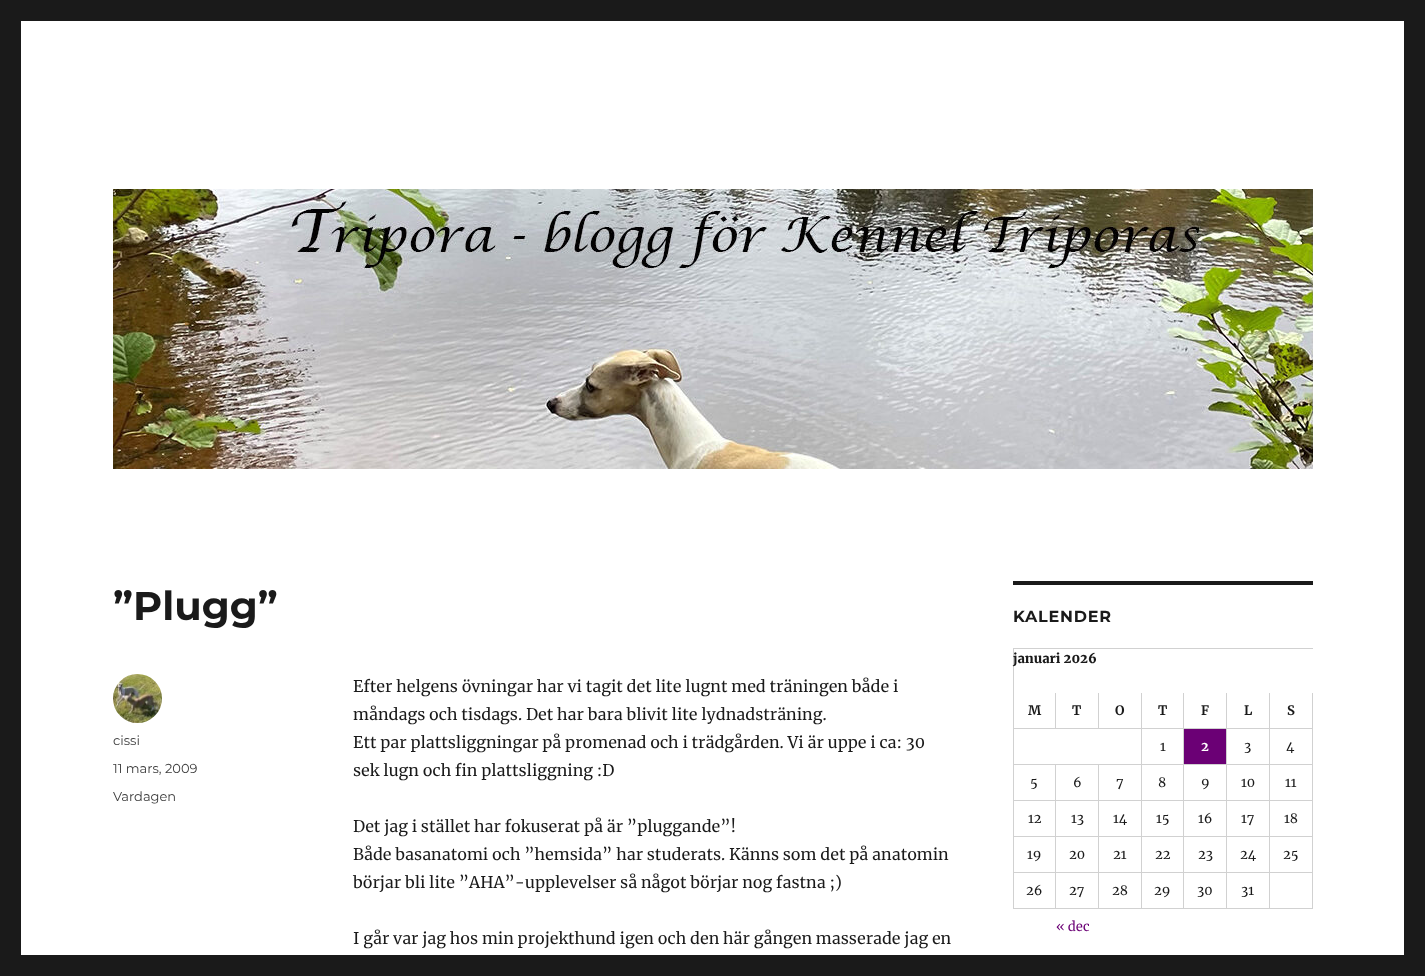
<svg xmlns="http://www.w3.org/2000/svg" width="1425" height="976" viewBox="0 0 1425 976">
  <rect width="100%" height="100%" fill="#1a1a1a"/>
  <rect x="21" y="21" width="1383" height="934" fill="#ffffff"/>
  <image x="113" y="189" width="1200" height="280" href="img1.png"/>
  <text x="113" y="620" font-family="Montserrat" font-size="40" font-weight="100" fill="#1a1a1a">”Plugg”</text>
  <image x="113" y="674" width="49" height="49" href="img2.png"/>
  <text x="113" y="745" font-family="'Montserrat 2'" font-size="13" font-weight="100" fill="#3d3d3d">cissi</text>
  <text x="113" y="773" font-family="'Montserrat 2'" font-size="13" font-weight="100" fill="#3d3d3d">11 mars, 2009</text>
  <text x="113" y="801" font-family="'Montserrat 2'" font-size="13" font-weight="100" fill="#3d3d3d">Vardagen</text>
  <text x="353" y="692" font-family="Merriweather" font-size="16" fill="#1a1a1a">Efter helgens övningar har vi tagit det lite lugnt med träningen både i</text>
  <text x="353" y="720" font-family="Merriweather" font-size="16" fill="#1a1a1a">måndags och tisdags. Det har bara blivit lite lydnadsträning.</text>
  <text x="353" y="748" font-family="Merriweather" font-size="16" fill="#1a1a1a">Ett par plattsliggningar på promenad och i trädgården. Vi är uppe i ca: 30</text>
  <text x="353" y="776" font-family="Merriweather" font-size="16" fill="#1a1a1a">sek lugn och fin plattsliggning :D</text>
  <text x="353" y="832" font-family="Merriweather" font-size="16" fill="#1a1a1a">Det jag i stället har fokuserat på är ”pluggande”!</text>
  <text x="353" y="860" font-family="Merriweather" font-size="16" fill="#1a1a1a">Både basanatomi och ”hemsida” har studerats. Känns som det på anatomin</text>
  <text x="353" y="888" font-family="Merriweather" font-size="16" fill="#1a1a1a">börjar bli lite ”AHA”-upplevelser så något börjar nog fastna ;)</text>
  <text x="353" y="944" font-family="Merriweather" font-size="16" fill="#1a1a1a">I går var jag hos min projekthund igen och den här gången masserade jag en</text>
  <rect x="1013" y="581" width="300" height="4" fill="#1a1a1a"/>
  <text x="1013" y="622" font-family="Montserrat" font-size="16" font-weight="100" letter-spacing="0.75" fill="#1a1a1a">KALENDER</text>
  <rect x="1013" y="648" width="300" height="1" fill="#d1d1d1"/>
  <rect x="1013" y="648" width="1" height="261" fill="#d1d1d1"/>
  <text x="1013" y="663" font-family="Merriweather" font-size="13" font-weight="900" fill="#1a1a1a">januari 2026</text>
  <rect x="1055" y="693" width="1" height="36" fill="#d1d1d1"/>
  <rect x="1014" y="728" width="42" height="1" fill="#d1d1d1"/>
  <text x="1028" y="715" font-family="Merriweather" font-size="13" font-weight="bold" fill="#1a1a1a">M</text>
  <rect x="1098" y="693" width="1" height="36" fill="#d1d1d1"/>
  <rect x="1056" y="728" width="43" height="1" fill="#d1d1d1"/>
  <text x="1072" y="715" font-family="Merriweather" font-size="13" font-weight="bold" fill="#1a1a1a">T</text>
  <rect x="1141" y="693" width="1" height="216" fill="#d1d1d1"/>
  <rect x="1099" y="728" width="43" height="1" fill="#d1d1d1"/>
  <text x="1115" y="715" font-family="Merriweather" font-size="13" font-weight="bold" fill="#1a1a1a">O</text>
  <rect x="1183" y="693" width="1" height="216" fill="#d1d1d1"/>
  <rect x="1142" y="728" width="42" height="1" fill="#d1d1d1"/>
  <text x="1158" y="715" font-family="Merriweather" font-size="13" font-weight="bold" fill="#1a1a1a">T</text>
  <rect x="1226" y="693" width="1" height="216" fill="#d1d1d1"/>
  <rect x="1184" y="728" width="43" height="1" fill="#d1d1d1"/>
  <text x="1201" y="715" font-family="Merriweather" font-size="13" font-weight="bold" fill="#1a1a1a">F</text>
  <rect x="1269" y="693" width="1" height="216" fill="#d1d1d1"/>
  <rect x="1227" y="728" width="43" height="1" fill="#d1d1d1"/>
  <text x="1244" y="715" font-family="Merriweather" font-size="13" font-weight="bold" fill="#1a1a1a">L</text>
  <rect x="1312" y="693" width="1" height="216" fill="#d1d1d1"/>
  <rect x="1270" y="728" width="43" height="1" fill="#d1d1d1"/>
  <text x="1287" y="715" font-family="Merriweather" font-size="13" font-weight="bold" fill="#1a1a1a">S</text>
  <text x="1160" y="751" font-family="Merriweather" font-size="13" fill="#1a1a1a">1</text>
  <rect x="1184" y="729" width="42" height="35" fill="#6b0075"/>
  <text x="1201" y="751" font-family="Merriweather" font-size="13" font-weight="bold" fill="#ffffff">2</text>
  <text x="1244" y="751" font-family="Merriweather" font-size="13" fill="#1a1a1a">3</text>
  <text x="1286" y="751" font-family="Merriweather" font-size="13" fill="#1a1a1a">4</text>
  <rect x="1014" y="764" width="299" height="1" fill="#d1d1d1"/>
  <rect x="1055" y="765" width="1" height="144" fill="#d1d1d1"/>
  <rect x="1014" y="800" width="42" height="1" fill="#d1d1d1"/>
  <text x="1030" y="787" font-family="Merriweather" font-size="13" fill="#1a1a1a">5</text>
  <rect x="1098" y="765" width="1" height="144" fill="#d1d1d1"/>
  <rect x="1056" y="800" width="257" height="1" fill="#d1d1d1"/>
  <text x="1073" y="787" font-family="Merriweather" font-size="13" fill="#1a1a1a">6</text>
  <text x="1116" y="787" font-family="Merriweather" font-size="13" fill="#1a1a1a">7</text>
  <text x="1158" y="787" font-family="Merriweather" font-size="13" fill="#1a1a1a">8</text>
  <text x="1201" y="787" font-family="Merriweather" font-size="13" fill="#1a1a1a">9</text>
  <text x="1241" y="787" font-family="Merriweather" font-size="13" fill="#1a1a1a">10</text>
  <text x="1285" y="787" font-family="Merriweather" font-size="13" fill="#1a1a1a">11</text>
  <rect x="1014" y="836" width="299" height="1" fill="#d1d1d1"/>
  <text x="1028" y="823" font-family="Merriweather" font-size="13" fill="#1a1a1a">12</text>
  <text x="1071" y="823" font-family="Merriweather" font-size="13" fill="#1a1a1a">13</text>
  <text x="1113" y="823" font-family="Merriweather" font-size="13" fill="#1a1a1a">14</text>
  <text x="1156" y="823" font-family="Merriweather" font-size="13" fill="#1a1a1a">15</text>
  <text x="1198" y="823" font-family="Merriweather" font-size="13" fill="#1a1a1a">16</text>
  <text x="1241" y="823" font-family="Merriweather" font-size="13" fill="#1a1a1a">17</text>
  <text x="1284" y="823" font-family="Merriweather" font-size="13" fill="#1a1a1a">18</text>
  <rect x="1014" y="872" width="299" height="1" fill="#d1d1d1"/>
  <text x="1027" y="859" font-family="Merriweather" font-size="13" fill="#1a1a1a">19</text>
  <text x="1069" y="859" font-family="Merriweather" font-size="13" fill="#1a1a1a">20</text>
  <text x="1113" y="859" font-family="Merriweather" font-size="13" fill="#1a1a1a">21</text>
  <text x="1155" y="859" font-family="Merriweather" font-size="13" fill="#1a1a1a">22</text>
  <text x="1198" y="859" font-family="Merriweather" font-size="13" fill="#1a1a1a">23</text>
  <text x="1240" y="859" font-family="Merriweather" font-size="13" fill="#1a1a1a">24</text>
  <text x="1283" y="859" font-family="Merriweather" font-size="13" fill="#1a1a1a">25</text>
  <rect x="1014" y="908" width="299" height="1" fill="#d1d1d1"/>
  <text x="1026" y="895" font-family="Merriweather" font-size="13" fill="#1a1a1a">26</text>
  <text x="1069" y="895" font-family="Merriweather" font-size="13" fill="#1a1a1a">27</text>
  <text x="1112" y="895" font-family="Merriweather" font-size="13" fill="#1a1a1a">28</text>
  <text x="1154" y="895" font-family="Merriweather" font-size="13" fill="#1a1a1a">29</text>
  <text x="1197" y="895" font-family="Merriweather" font-size="13" fill="#1a1a1a">30</text>
  <text x="1241" y="895" font-family="Merriweather" font-size="13" fill="#1a1a1a">31</text>
  <text x="1056" y="931" font-family="Merriweather" font-size="13" fill="#6b0075">« dec</text>
</svg>
